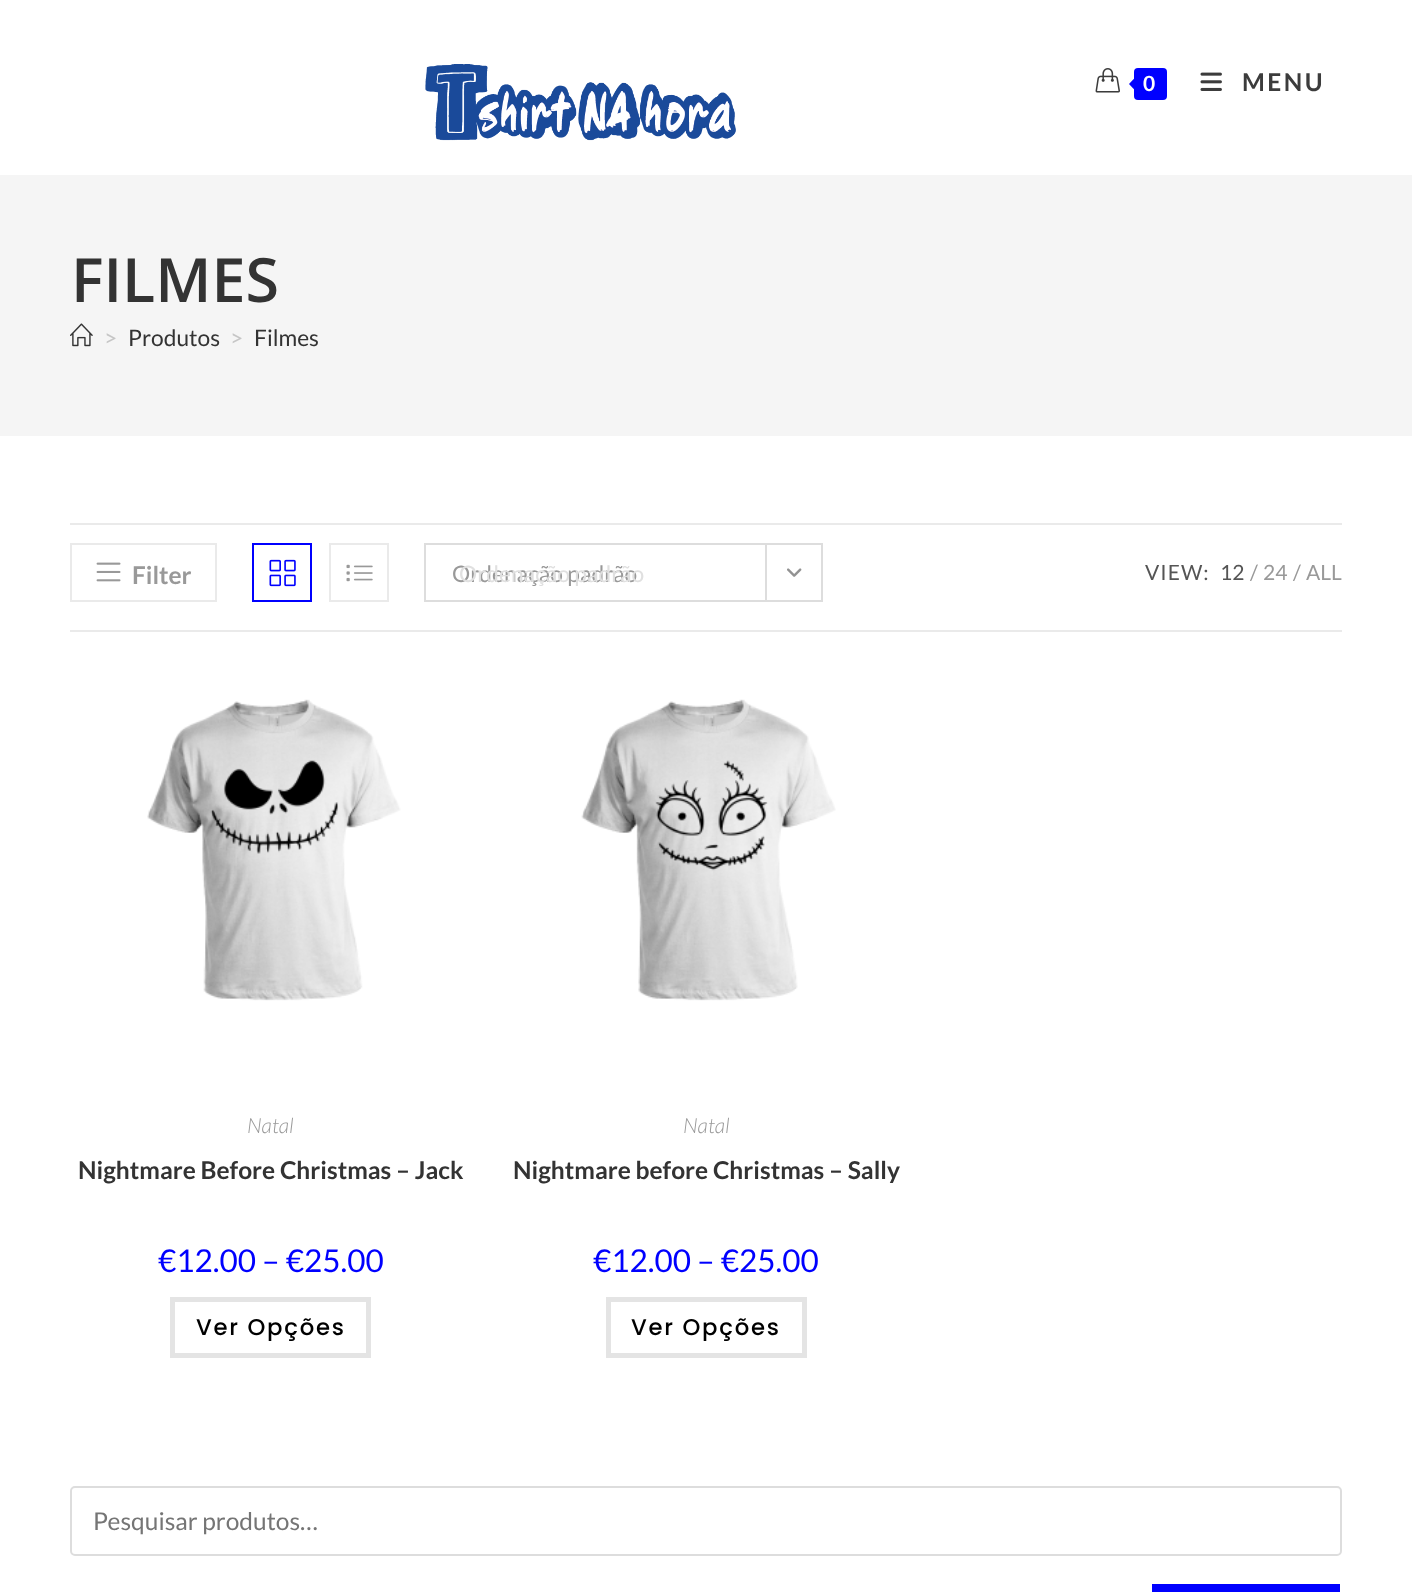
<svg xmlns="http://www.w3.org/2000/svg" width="1412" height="1592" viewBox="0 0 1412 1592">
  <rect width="100%" height="100%" fill="#ffffff"/>
  <image x="425" y="64" width="311" height="77" href="img1.png"/>
  <image x="1095" y="68" width="25" height="25" href="img2.png"/>
  <rect x="1134" y="68" width="33" height="32" rx="4" fill="#0000ff"/>
  <path d="M1137.5 75V93L1129 84Z" fill="#0000ff"/>
  <text x="1143" y="91" font-family="Lato" font-size="21" font-weight="bold" letter-spacing="2.5" fill="#ffffff">0</text>
  <image x="1200" y="72" width="22" height="19" href="img3.png"/>
  <text x="1242" y="91" font-family="Lato" font-size="24.5" font-weight="bold" letter-spacing="2.5" fill="#3c3c3c">MENU</text>
  <rect x="0" y="175" width="1412" height="261" fill="#f5f5f5"/>
  <text x="71" y="302" font-family="Open Sans" font-size="61" font-weight="600" fill="#333333">FILMES</text>
  <image x="70" y="323" width="23" height="24" href="img4.png"/>
  <text x="104" y="346" font-family="Lato" font-size="22.75" fill="#c6c6c6">&gt;</text>
  <text x="128" y="346" font-family="Lato" font-size="22.75" fill="#333333">Produtos</text>
  <text x="230" y="346" font-family="Lato" font-size="22.75" fill="#c6c6c6">&gt;</text>
  <text x="254" y="346" font-family="Lato" font-size="22.75" fill="#333333">Filmes</text>
  <rect x="70" y="523" width="1272" height="2" fill="#eaeaea"/>
  <rect x="70" y="630" width="1272" height="2" fill="#eaeaea"/>
  <rect x="71" y="544" width="145" height="57" fill="none" stroke="#eaeaea" stroke-width="2"/>
  <image x="96" y="562" width="25" height="20" href="img5.png"/>
  <text x="132" y="584" font-family="Lato" font-size="24.5" font-weight="bold" fill="#999999">Filter</text>
  <rect x="253" y="544" width="58" height="57" fill="none" stroke="#0000ff" stroke-width="2"/>
  <image x="269" y="559" width="27" height="28" href="img6.png"/>
  <rect x="330" y="544" width="58" height="57" fill="none" stroke="#eaeaea" stroke-width="2"/>
  <image x="346" y="564" width="27" height="18" href="img7.png"/>
  <rect x="425" y="544" width="397" height="57" fill="none" stroke="#dddddd" stroke-width="2"/>
  <text x="452" y="582" font-family="Lato" font-size="22.75" fill="#999999">Ordenação padrão</text>
  <rect x="765" y="544" width="2" height="56" fill="#dddddd"/>
  <image x="787" y="568" width="15" height="9" href="img8.png"/>
  <text x="459" y="582" font-family="Lato" font-size="22.75" fill="#e0e0e0">Ordenação padrão</text>
  <text x="1145" y="580" font-family="Lato" font-size="21" letter-spacing="1" fill="#555555">VIEW:</text>
  <text x="1220" y="580" font-family="Lato" font-size="21" fill="#555555">12</text>
  <text x="1250" y="580" font-family="Lato" font-size="21" fill="#999999">/</text>
  <text x="1263" y="580" font-family="Lato" font-size="21" fill="#999999">24</text>
  <text x="1293" y="580" font-family="Lato" font-size="21" fill="#999999">/</text>
  <text x="1306" y="580" font-family="Lato" font-size="21" fill="#999999">ALL</text>
  <image x="147" y="699" width="254" height="302" href="img9.png"/>
  <text x="247" y="1133" font-family="Lato" font-size="21" font-weight="300" font-style="italic" fill="#999999">Natal</text>
  <text x="78" y="1179" font-family="Lato" font-size="24.5" font-weight="bold" fill="#333333">Nightmare Before Christmas – Jack</text>
  <text x="158" y="1272" font-family="Lato" font-size="31.5" fill="#0000ff">€12.00 – €25.00</text>
  <rect x="172.5" y="1299.5" width="196" height="56" fill="none" stroke="#e4e4e4" stroke-width="5"/>
  <text x="196" y="1335" font-family="Poppins" font-size="22.75" font-weight="500" letter-spacing="1.75" fill="#000000">Ver Opções</text>
  <image x="581" y="699" width="255" height="302" href="img10.png"/>
  <text x="683" y="1133" font-family="Lato" font-size="21" font-weight="300" font-style="italic" fill="#999999">Natal</text>
  <text x="513" y="1179" font-family="Lato" font-size="24.5" font-weight="bold" fill="#333333">Nightmare before Christmas – Sally</text>
  <text x="593" y="1272" font-family="Lato" font-size="31.5" fill="#0000ff">€12.00 – €25.00</text>
  <rect x="608.5" y="1299.5" width="196" height="56" fill="none" stroke="#e4e4e4" stroke-width="5"/>
  <text x="631" y="1335" font-family="Poppins" font-size="22.75" font-weight="500" letter-spacing="1.75" fill="#000000">Ver Opções</text>
  <rect x="71" y="1487" width="1270" height="68" rx="4" fill="none" stroke="#dddddd" stroke-width="2"/>
  <text x="93" y="1530" font-family="Lato" font-size="24.5" fill="#757575">Pesquisar produtos…</text>
  <rect x="1152" y="1584" width="188" height="8" fill="#0000ff"/>
</svg>
